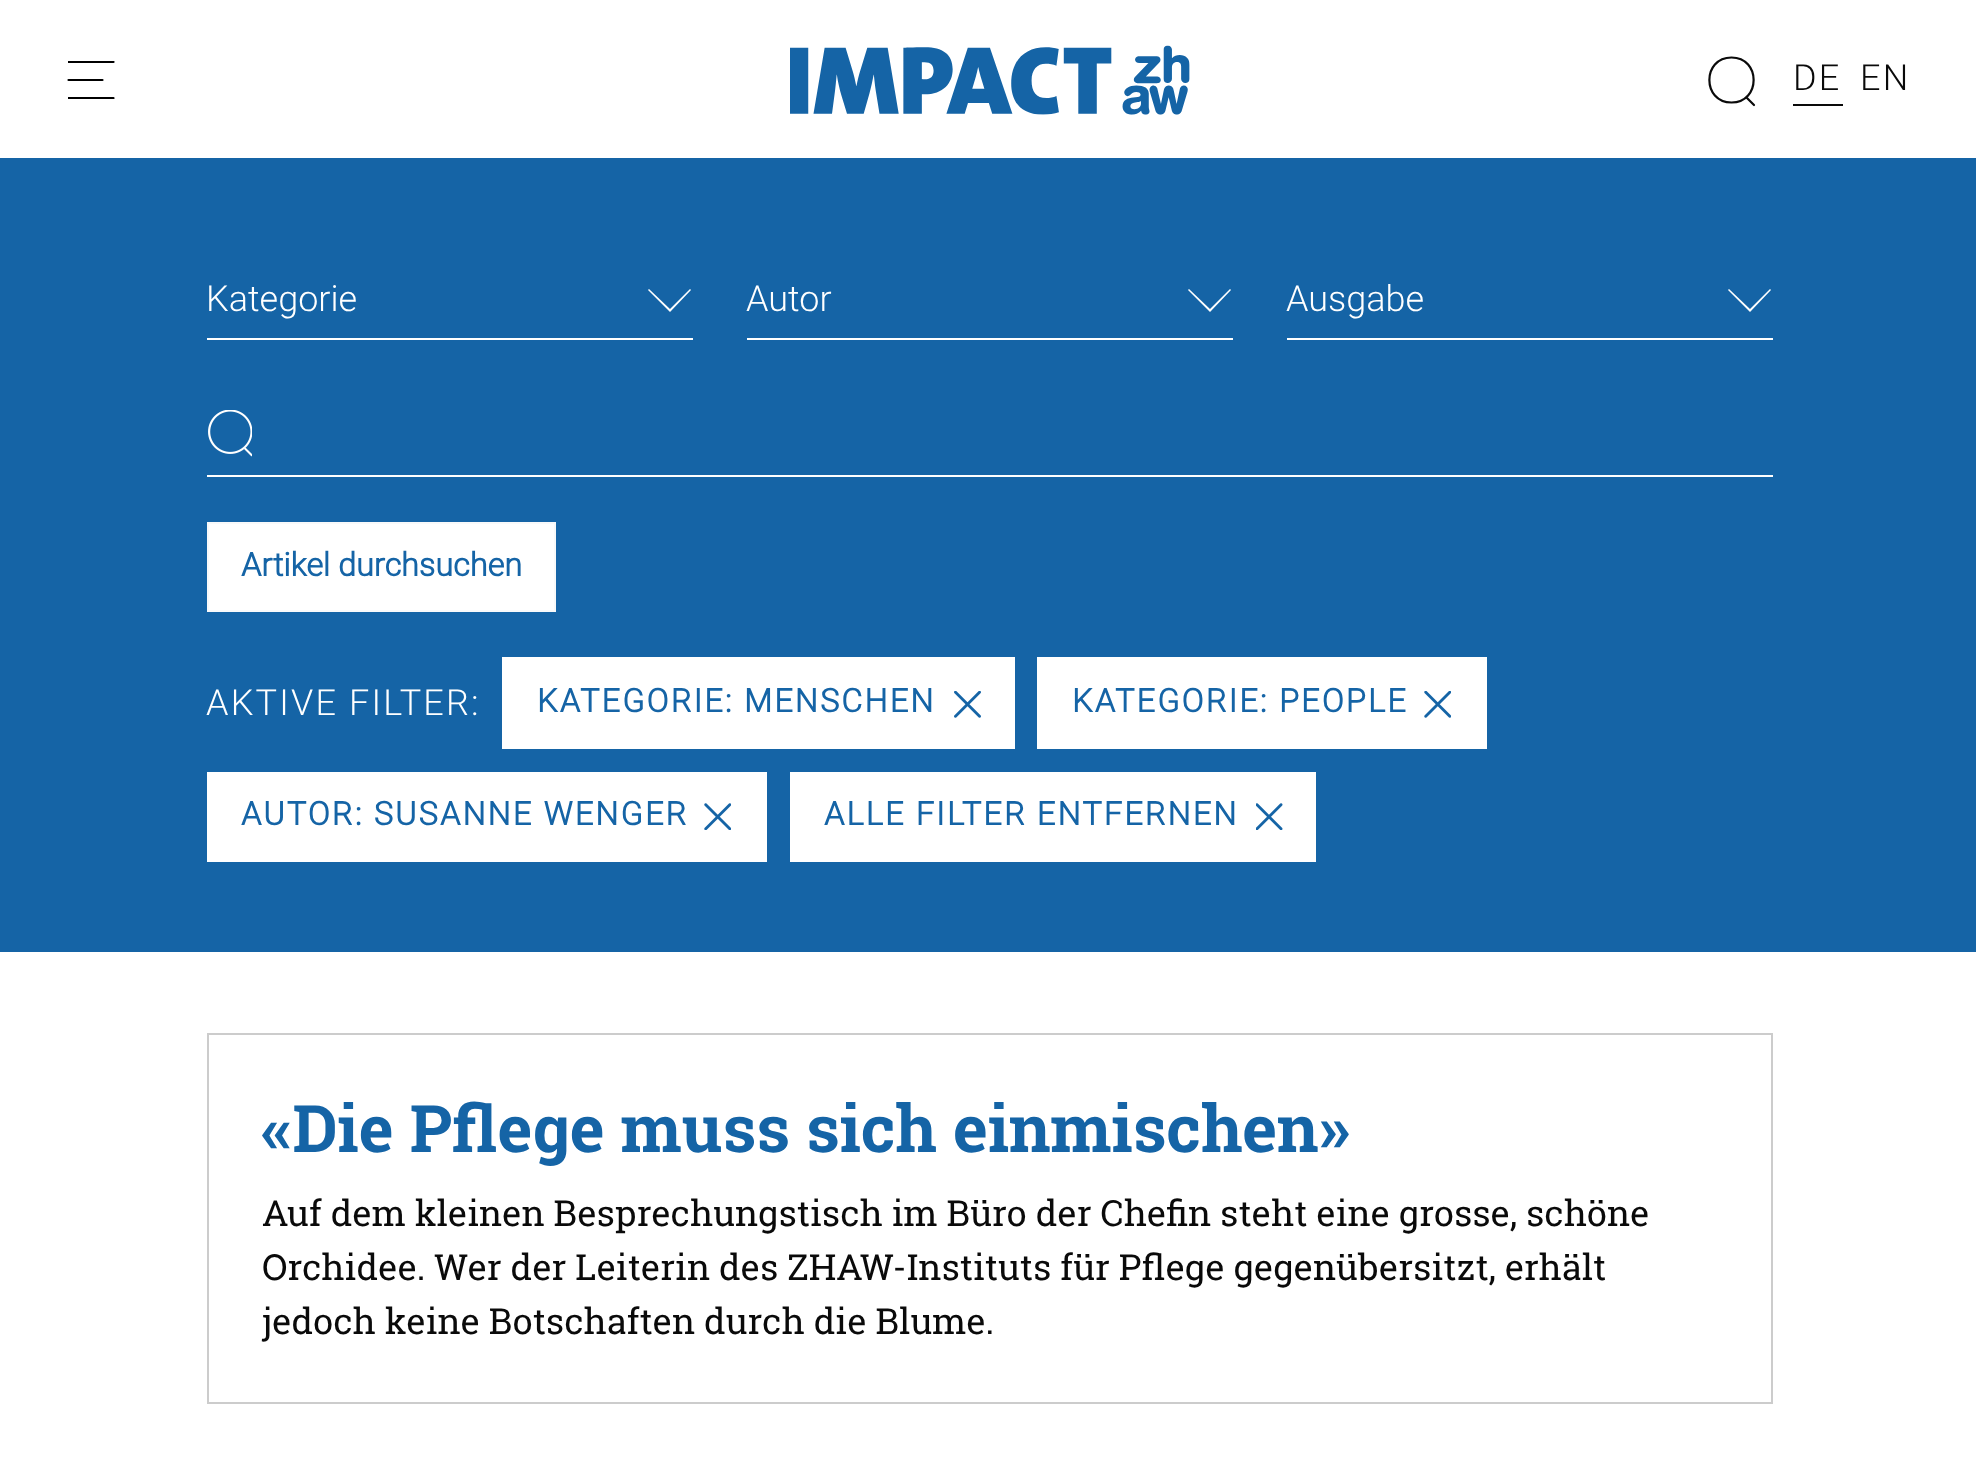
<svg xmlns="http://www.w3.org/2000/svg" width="1976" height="1476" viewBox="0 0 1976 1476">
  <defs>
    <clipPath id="clip1"><rect x="68" y="61" width="47" height="38"/></clipPath>
  </defs>
  <rect width="100%" height="100%" fill="#ffffff"/>
  <g clip-path="url(#clip1)">
    <path d="M68.5 98H113.5" fill="none" stroke="#000000" stroke-width="2.2" stroke-linecap="round"/>
  </g>
  <path d="M68.5 80H102.5" fill="none" stroke="#000000" stroke-width="2.2" stroke-linecap="round"/>
  <g clip-path="url(#clip1)">
    <path d="M68.5 62H113.5" fill="none" stroke="#000000" stroke-width="2.2" stroke-linecap="round"/>
  </g>
  <image x="790" y="45" width="400" height="70" href="img1.png"/>
  <path d="M1731.5 57.5C1702 57.5 1702 102.5 1731.5 102.5C1761 102.5 1761 57.5 1731.5 57.5Z" fill="none" stroke="#0a0a0a" stroke-width="2.2"/>
  <path d="M1747 98L1754 105" fill="none" stroke="#0a0a0a" stroke-width="2.2" stroke-linecap="round"/>
  <text x="1793" y="90" font-family="Roboto" font-size="36" font-weight="300" letter-spacing="2.2" fill="#0a0a0a">DE</text>
  <rect x="1793" y="104" width="50" height="2" fill="#0a0a0a"/>
  <text x="1860" y="90" font-family="Roboto" font-size="36" font-weight="300" letter-spacing="2.2" fill="#0a0a0a">EN</text>
  <rect x="0" y="158" width="1976" height="794" fill="#1564a6"/>
  <rect x="207" y="338" width="486" height="2" fill="#ffffff"/>
  <text x="206" y="311" font-family="Roboto" font-size="36" font-weight="300" fill="#ffffff">Kategorie</text>
  <path d="M671 311L691 290L690 289L670 309L649 289L648 290L670 312Z" fill="#ffffff"/>
  <rect x="747" y="338" width="486" height="2" fill="#ffffff"/>
  <text x="746" y="311" font-family="Roboto" font-size="36" font-weight="300" fill="#ffffff">Autor</text>
  <path d="M1211 311L1231 290L1230 289L1210 309L1189 289L1188 290L1210 312Z" fill="#ffffff"/>
  <rect x="1287" y="338" width="486" height="2" fill="#ffffff"/>
  <text x="1286" y="311" font-family="Roboto" font-size="36" font-weight="300" fill="#ffffff">Ausgabe</text>
  <path d="M1751 311L1771 290L1770 289L1750 309L1729 289L1728 290L1750 312Z" fill="#ffffff"/>
  <image x="208" y="410" width="44" height="47" href="img2.png"/>
  <rect x="207" y="475" width="1566" height="2" fill="#ffffff"/>
  <rect x="208" y="523" width="347" height="88" fill="#ffffff" stroke="#f8f9fa" stroke-width="2"/>
  <text x="241" y="576" font-family="Roboto" font-size="32.4" font-weight="bold" fill="#1564a6">Artikel durchsuchen</text>
  <text x="206" y="715" font-family="Roboto" font-size="36" font-weight="300" letter-spacing="2.2" fill="#ffffff">AKTIVE FILTER:</text>
  <rect x="502" y="657" width="513" height="92" fill="#ffffff"/>
  <text x="537" y="712" font-family="Roboto" font-size="32.4" font-weight="bold" letter-spacing="2.2" fill="#1564a6">KATEGORIE: MENSCHEN</text>
  <image x="954" y="691" width="27" height="27" href="img3.png"/>
  <rect x="1037" y="657" width="450" height="92" fill="#ffffff"/>
  <text x="1072" y="712" font-family="Roboto" font-size="32.4" font-weight="bold" letter-spacing="2.2" fill="#1564a6">KATEGORIE: PEOPLE</text>
  <image x="1424" y="691" width="27" height="27" href="img4.png"/>
  <rect x="207" y="772" width="560" height="90" fill="#ffffff"/>
  <text x="241" y="825" font-family="Roboto" font-size="32.4" font-weight="bold" letter-spacing="2.2" fill="#1564a6">AUTOR: SUSANNE WENGER</text>
  <image x="704" y="803" width="27" height="27" href="img5.png"/>
  <rect x="790" y="772" width="526" height="90" fill="#ffffff"/>
  <text x="824" y="825" font-family="Roboto" font-size="32.4" font-weight="bold" letter-spacing="2.2" fill="#1564a6">ALLE FILTER ENTFERNEN</text>
  <image x="1256" y="803" width="27" height="27" href="img6.png"/>
  <rect x="208" y="1034" width="1564" height="369" fill="none" stroke="#cccccc" stroke-width="2"/>
  <text x="262" y="1152" font-family="Roboto Slab" font-size="65.5" font-weight="bold" fill="#1564a6">«Die Pflege muss sich einmischen»</text>
  <text x="262" y="1226" font-family="Roboto Slab" font-size="36" fill="#0a0a0a">Auf dem kleinen Besprechungstisch im Büro der Chefin steht eine grosse, schöne</text>
  <text x="262" y="1280" font-family="Roboto Slab" font-size="36" fill="#0a0a0a">Orchidee. Wer der Leiterin des ZHAW-Instituts für Pflege gegenübersitzt, erhält</text>
  <text x="262" y="1334" font-family="Roboto Slab" font-size="36" fill="#0a0a0a">jedoch keine Botschaften durch die Blume.</text>
</svg>
